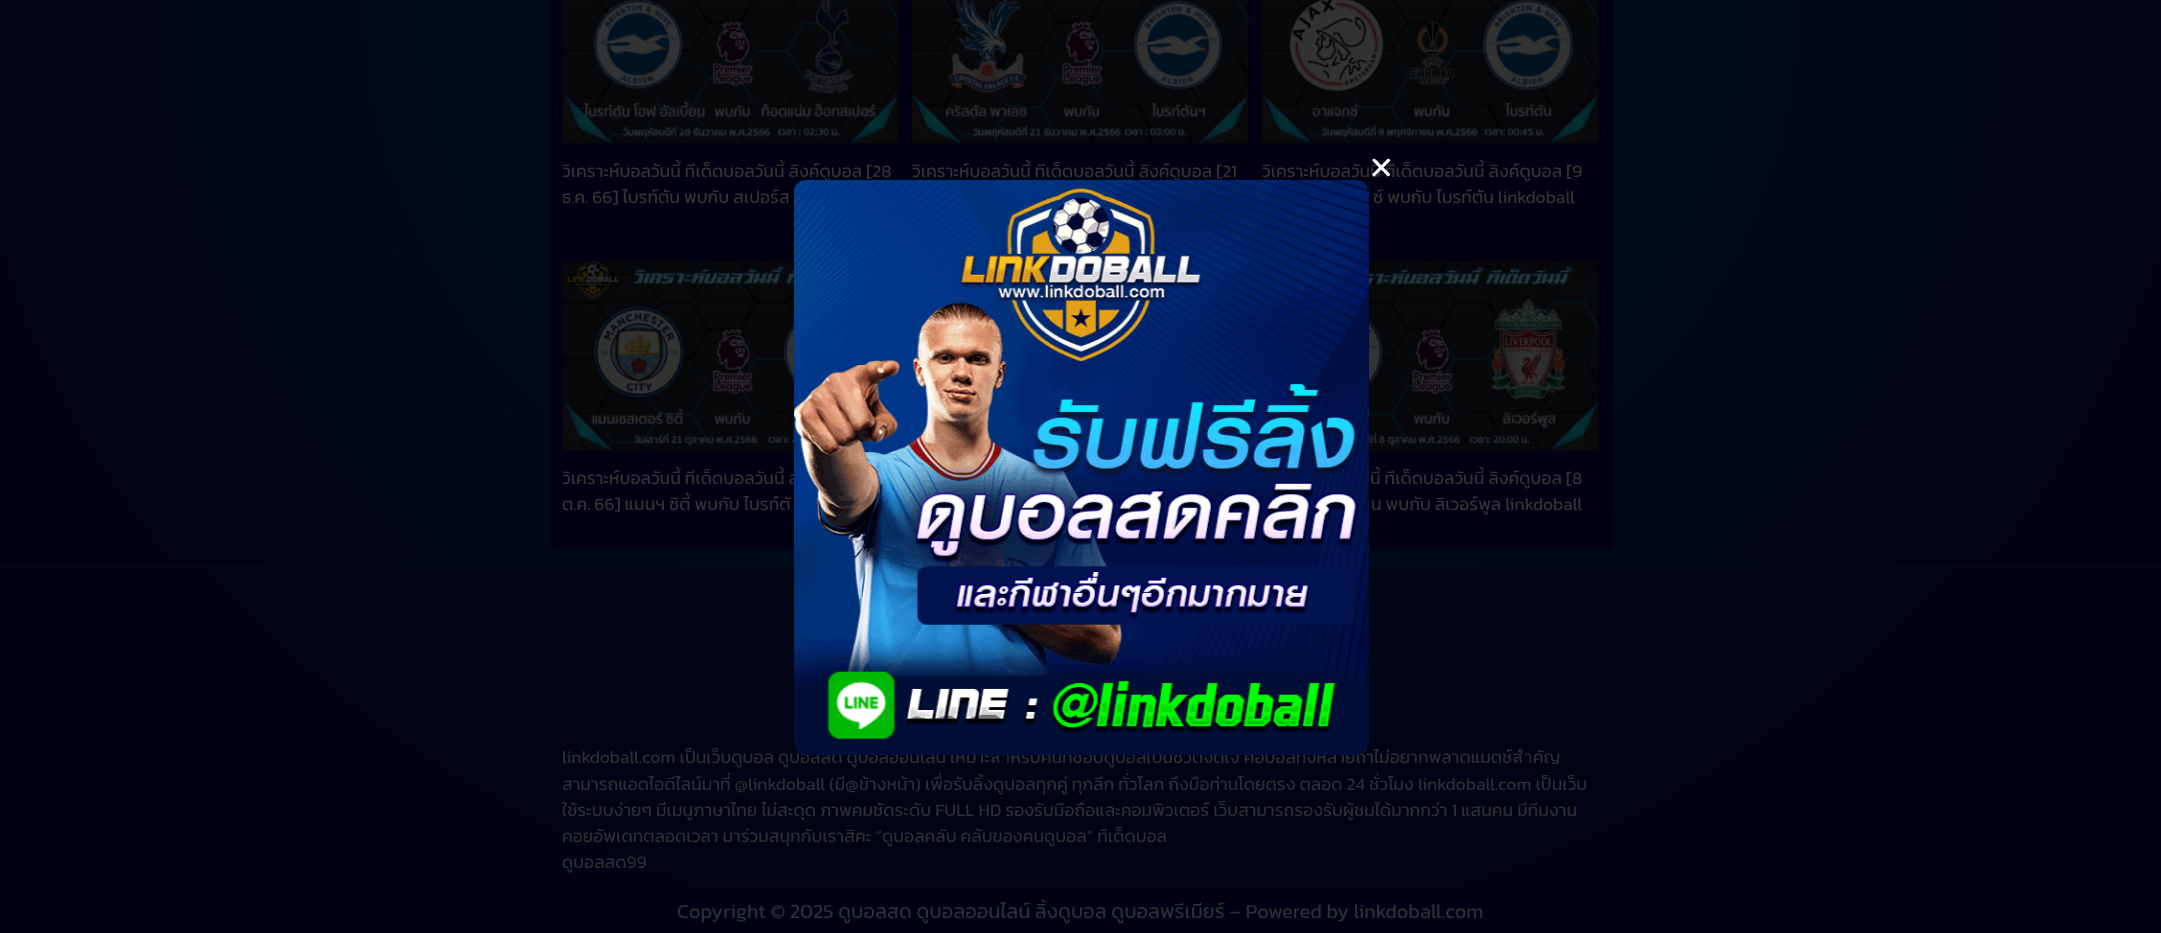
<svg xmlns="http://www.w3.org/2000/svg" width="2161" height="933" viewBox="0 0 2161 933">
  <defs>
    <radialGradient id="g1" gradientUnits="userSpaceOnUse" cx="0" cy="0" r="1" gradientTransform="matrix(1528 0 0 1321 1081 0)"><stop offset="0.38" stop-color="#000c1c"/><stop offset="0.75" stop-color="#010113"/></radialGradient>
    <radialGradient id="g2" gradientUnits="userSpaceOnUse" cx="0" cy="0" r="1" gradientTransform="matrix(1528 0 0 1321 1081 0)"><stop offset="0.38" stop-color="#010717"/><stop offset="0.75" stop-color="#010113"/></radialGradient>
    <clipPath id="clip1"><rect x="1261" y="0" width="338" height="249"/></clipPath>
    <clipPath id="clip2"><rect x="563" y="0" width="336" height="249"/></clipPath>
    <clipPath id="clip3"><rect x="911" y="0" width="338" height="249"/></clipPath>
    <clipPath id="clip4"><rect x="563" y="261" width="336" height="268"/></clipPath>
  </defs>
  <rect width="100%" height="100%" fill="#ffffff"/>
  <rect x="0" y="0" width="2161" height="568" fill="url(#g1)"/>
  <rect x="0" y="568" width="2161" height="321" fill="url(#g2)"/>
  <rect x="550" y="0" width="1063" height="548" fill="#010113"/>
  <g clip-path="url(#clip1)">
    <text x="1262" y="177" font-family="Kanit" font-size="17.5" fill="#333333">วิเคราะห์บอลวันนี้ ทีเด็ดบอลวันนี้ ลิงค์ดูบอล [9</text>
  </g>
  <image x="1372" y="158" width="19" height="19" href="img1.png"/>
  <g clip-path="url(#clip2)">
    <text x="562" y="177" font-family="Kanit" font-size="17.5" fill="#333333">วิเคราะห์บอลวันนี้ ทีเด็ดบอลวันนี้ ลิงค์ดูบอล [28</text>
  </g>
  <g clip-path="url(#clip3)">
    <text x="912" y="177" font-family="Kanit" font-size="17.5" fill="#333333">วิเคราะห์บอลวันนี้ ทีเด็ดบอลวันนี้ ลิงค์ดูบอล [21</text>
  </g>
  <text x="1373" y="203" font-family="Kanit" font-size="17.5" fill="#333333">ซ์ พบกับ ไบรท์ตัน linkdoball</text>
  <g clip-path="url(#clip4)">
    <text x="562" y="484" font-family="Kanit" font-size="17.5" fill="#333333">วิเคราะห์บอลวันนี้ ทีเด็ดบอลวันนี้ ล</text>
  </g>
  <text x="1370" y="484" font-family="Kanit" font-size="17.5" fill="#333333">นี้ ทีเด็ดบอลวันนี้ ลิงค์ดูบอล [8</text>
  <rect x="0" y="566" width="2161" height="1" fill="#000c1c"/>
  <text x="562" y="763" font-family="Kanit" font-size="17.5" fill="#283032">linkdoball.com เป็นเว็บดูบอล ดูบอลสด ดูบอลออนไลน์ เหมาะสำหรับคนที่ชอบดูบอลเป็นชีวิตจิตใจ คอบอลทั้งหลายถ้าไม่อยากพลาดแมตช์สำคัญ</text>
  <image x="794" y="180" width="575" height="575" href="img2.png"/>
  <image x="562" y="0" width="337" height="144" href="img3.png"/>
  <g clip-path="url(#clip2)">
    <text x="562" y="203" font-family="Kanit" font-size="17.5" fill="#333333">ธ.ค. 66] ไบรท์ตัน พบกับ สเปอร์ส</text>
  </g>
  <image x="911" y="0" width="338" height="144" href="img4.png"/>
  <image x="1261" y="0" width="338" height="144" href="img5.png"/>
  <image x="562" y="260" width="232" height="191" href="img6.png"/>
  <g clip-path="url(#clip4)">
    <text x="562" y="510" font-family="Kanit" font-size="17.5" fill="#333333">ต.ค. 66] แมนฯ ซิตี้ พบกับ ไบรท์ตั</text>
  </g>
  <image x="1369" y="260" width="230" height="191" href="img7.png"/>
  <text x="1371" y="510" font-family="Kanit" font-size="17.5" fill="#333333">น พบกับ ลิเวอร์พูล linkdoball</text>
  <text x="562" y="790" font-family="Kanit" font-size="17.5" fill="#283032">สามารถแอดไอดีไลน์มาที่ @linkdoball (มี@ข้างหน้า) เพื่อรับลิ้งดูบอลทุกคู่ ทุกลีก ทั่วโลก ถึงมือท่านโดยตรง ตลอด 24 ชั่วโมง linkdoball.com เป็นเว็บ</text>
  <text x="562" y="816" font-family="Kanit" font-size="17.5" fill="#283032">ใช้ระบบง่ายๆ มีเมนูภาษาไทย ไม่สะดุด ภาพคมชัดระดับ FULL HD รองรับมือถือและคอมพิวเตอร์ เว็บสามารถรองรับผู้ชมได้มากกว่า 1 แสนคน มีทีมงาน</text>
  <text x="562" y="842" font-family="Kanit" font-size="17.5" fill="#283032">คอยอัพเดทตลอดเวลา มาร่วมสนุกกับเราสิคะ “ดูบอลคลับ คลับของคนดูบอล” ทีเด็ดบอล</text>
  <text x="562" y="868" font-family="Kanit" font-size="17.5" fill="#283032">ดูบอลสด99</text>
  <rect x="0" y="889" width="2161" height="44" fill="#010113"/>
  <text x="677" y="918" font-family="Kanit" font-size="20" fill="#283032">Copyright © 2025 ดูบอลสด ดูบอลออนไลน์ ลิ้งดูบอล ดูบอลพรีเมียร์ – Powered by linkdoball.com</text>
</svg>
